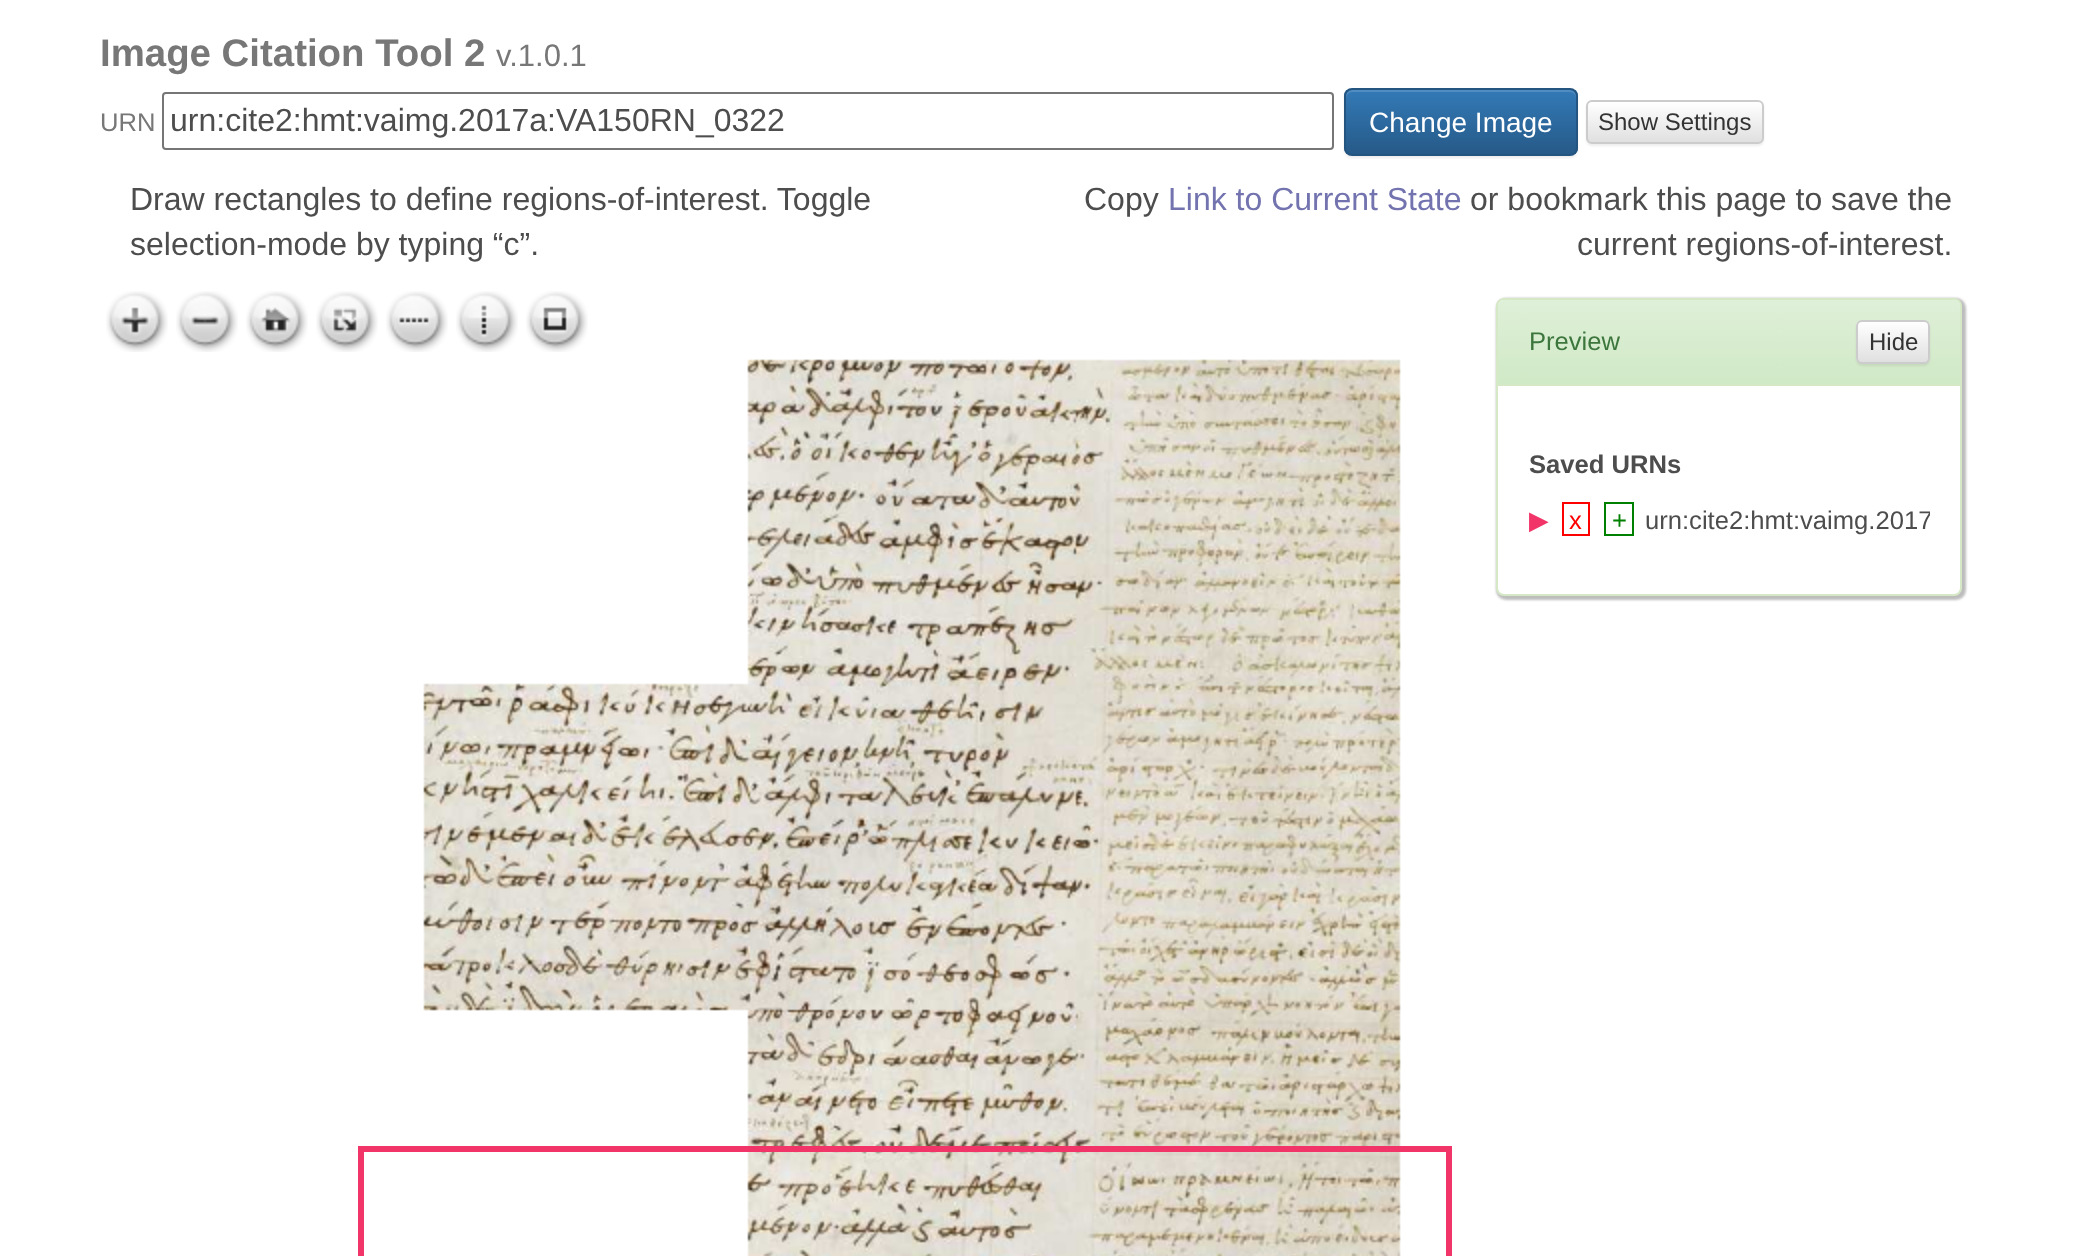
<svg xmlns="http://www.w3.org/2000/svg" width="2081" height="1256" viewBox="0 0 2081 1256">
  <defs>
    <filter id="blur1" x="-50%" y="-200%" width="200%" height="500%"><feGaussianBlur stdDeviation="1"/></filter>
    <clipPath id="clip1"><rect x="1344" y="88" width="234" height="68" rx="8"/></clipPath>
    <linearGradient id="g1" gradientUnits="userSpaceOnUse" x1="1461" y1="90" x2="1461" y2="154"><stop offset="0" stop-color="#337ab7"/><stop offset="1" stop-color="#265a88"/></linearGradient>
    <clipPath id="clip2"><rect x="1586" y="100" width="178" height="44" rx="6"/></clipPath>
    <linearGradient id="g2" gradientUnits="userSpaceOnUse" x1="1675" y1="102" x2="1675" y2="142"><stop offset="0" stop-color="#ffffff"/><stop offset="1" stop-color="#e0e0e0"/></linearGradient>
    <linearGradient id="g3" gradientUnits="userSpaceOnUse" x1="1729" y1="300" x2="1729" y2="384"><stop offset="0" stop-color="#dff0d8"/><stop offset="1" stop-color="#d0e9c6"/></linearGradient>
    <clipPath id="clip3"><rect x="1856" y="320" width="74" height="44" rx="6"/></clipPath>
    <linearGradient id="g4" gradientUnits="userSpaceOnUse" x1="1893" y1="322" x2="1893" y2="362"><stop offset="0" stop-color="#ffffff"/><stop offset="1" stop-color="#e0e0e0"/></linearGradient>
    <clipPath id="clip4"><rect x="1528" y="498" width="402" height="46"/></clipPath>
  </defs>
  <rect width="100%" height="100%" fill="#ffffff"/>
  <text x="100" y="66" font-family="Liberation Sans" font-size="38.4" font-weight="bold" fill="#777777">Image Citation Tool 2</text>
  <text x="496" y="66" font-family="Liberation Sans" font-size="31" fill="#777777">v.1.0.1</text>
  <text x="100" y="131" font-family="Liberation Sans" font-size="25.6" fill="#777777">URN</text>
  <rect x="163" y="93" width="1170" height="56" rx="3" fill="none" stroke="#767676" stroke-width="2"/>
  <text x="170" y="131" font-family="Liberation Sans" font-size="32" fill="#4d4d4d">urn:cite2:hmt:vaimg.2017a:VA150RN_0322</text>
  <rect x="1344" y="90" width="234" height="68" rx="8" fill="#000000" fill-opacity="0.07" filter="url(#blur1)"/>
  <g clip-path="url(#clip1)">
    <rect x="1344" y="90" width="234" height="64" fill="url(#g1)"/>
  </g>
  <path d="M1352 92H1570C1573 92 1576 95 1576 98V96C1576 93 1573 90 1570 90H1352C1349 90 1346 93 1346 96V98C1346 95 1349 92 1352 92Z" fill="#ffffff" fill-opacity="0.15"/>
  <rect x="1345" y="89" width="232" height="66" rx="7" fill="none" stroke="#245580" stroke-width="2"/>
  <text x="1369" y="132" font-family="Liberation Sans" font-size="28" fill="#ffffff">Change Image</text>
  <rect x="1586" y="102" width="178" height="44" rx="6" fill="#000000" fill-opacity="0.07" filter="url(#blur1)"/>
  <g clip-path="url(#clip2)">
    <rect x="1586" y="102" width="178" height="40" fill="url(#g2)"/>
  </g>
  <rect x="1587" y="101" width="176" height="42" rx="5" fill="none" stroke="#cccccc" stroke-width="2"/>
  <text x="1598" y="130" font-family="Liberation Sans" font-size="24" fill="#333333">Show Settings</text>
  <text x="130" y="210" font-family="Liberation Sans" font-size="32" fill="#4d4d4d">Draw rectangles to define regions-of-interest. Toggle</text>
  <text x="130" y="255" font-family="Liberation Sans" font-size="32" fill="#4d4d4d">selection-mode by typing “c”.</text>
  <text x="1084" y="210" font-family="Liberation Sans" font-size="32" fill="#4d4d4d">Copy</text>
  <text x="1168" y="210" font-family="Liberation Sans" font-size="32" fill="#7273af">Link to Current State</text>
  <text x="1470" y="210" font-family="Liberation Sans" font-size="32" fill="#4d4d4d">or bookmark this page to save the</text>
  <text x="1577" y="255" font-family="Liberation Sans" font-size="32" fill="#4d4d4d">current regions-of-interest.</text>
  <image x="106" y="291" width="62" height="61" href="img1.png"/>
  <image x="176" y="291" width="62" height="61" href="img2.png"/>
  <image x="246" y="291" width="62" height="61" href="img3.png"/>
  <image x="316" y="291" width="62" height="61" href="img4.png"/>
  <image x="386" y="291" width="62" height="61" href="img5.png"/>
  <image x="456" y="291" width="62" height="61" href="img6.png"/>
  <image x="526" y="291" width="62" height="61" href="img7.png"/>
  <image x="423" y="359" width="978" height="897" href="img8.png"/>
  <rect x="361" y="1149" width="1088" height="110" fill="none" stroke="#f23568" stroke-width="6"/>
  <rect x="1496" y="298" width="470" height="302" rx="10" fill="#7d7d7d" fill-opacity="0.5" filter="url(#blur1)"/>
  <rect x="1497" y="299" width="464" height="296" rx="7" fill="#ffffff" stroke="#d6e9c6" stroke-width="2"/>
  <path d="M1504 300H1954C1957.5 300 1960 302.5 1960 306V384H1498V306C1498 302.5 1500.5 300 1504 300Z" fill="url(#g3)"/>
  <rect x="1498" y="384" width="462" height="2" fill="#d6e9c6"/>
  <text x="1529" y="350" font-family="Liberation Sans" font-size="25.6" fill="#3c763d">Preview</text>
  <rect x="1856" y="322" width="74" height="44" rx="6" fill="#000000" fill-opacity="0.07" filter="url(#blur1)"/>
  <g clip-path="url(#clip3)">
    <rect x="1856" y="322" width="74" height="40" fill="url(#g4)"/>
  </g>
  <rect x="1857" y="321" width="72" height="42" rx="5" fill="none" stroke="#cccccc" stroke-width="2"/>
  <text x="1869" y="350" font-family="Liberation Sans" font-size="24" fill="#333333">Hide</text>
  <text x="1529" y="473" font-family="Liberation Sans" font-size="25.6" font-weight="bold" fill="#4d4d4d">Saved URNs</text>
  <text x="1529" y="529" font-family="DejaVu Sans" font-size="25.6" fill="#f23568">▶︎</text>
  <rect x="1563" y="503" width="26" height="32" fill="none" stroke="#ff0000" stroke-width="2"/>
  <text x="1569" y="529" font-family="Liberation Sans" font-size="25.6" fill="#ff0000">x</text>
  <rect x="1605" y="503" width="28" height="32" fill="none" stroke="#008000" stroke-width="2"/>
  <text x="1612" y="529" font-family="Liberation Sans" font-size="25.6" fill="#008000">+</text>
  <g clip-path="url(#clip4)">
    <text x="1645" y="529" font-family="Liberation Sans" font-size="25.6" fill="#4d4d4d">urn:cite2:hmt:vaimg.2017</text>
  </g>
</svg>
